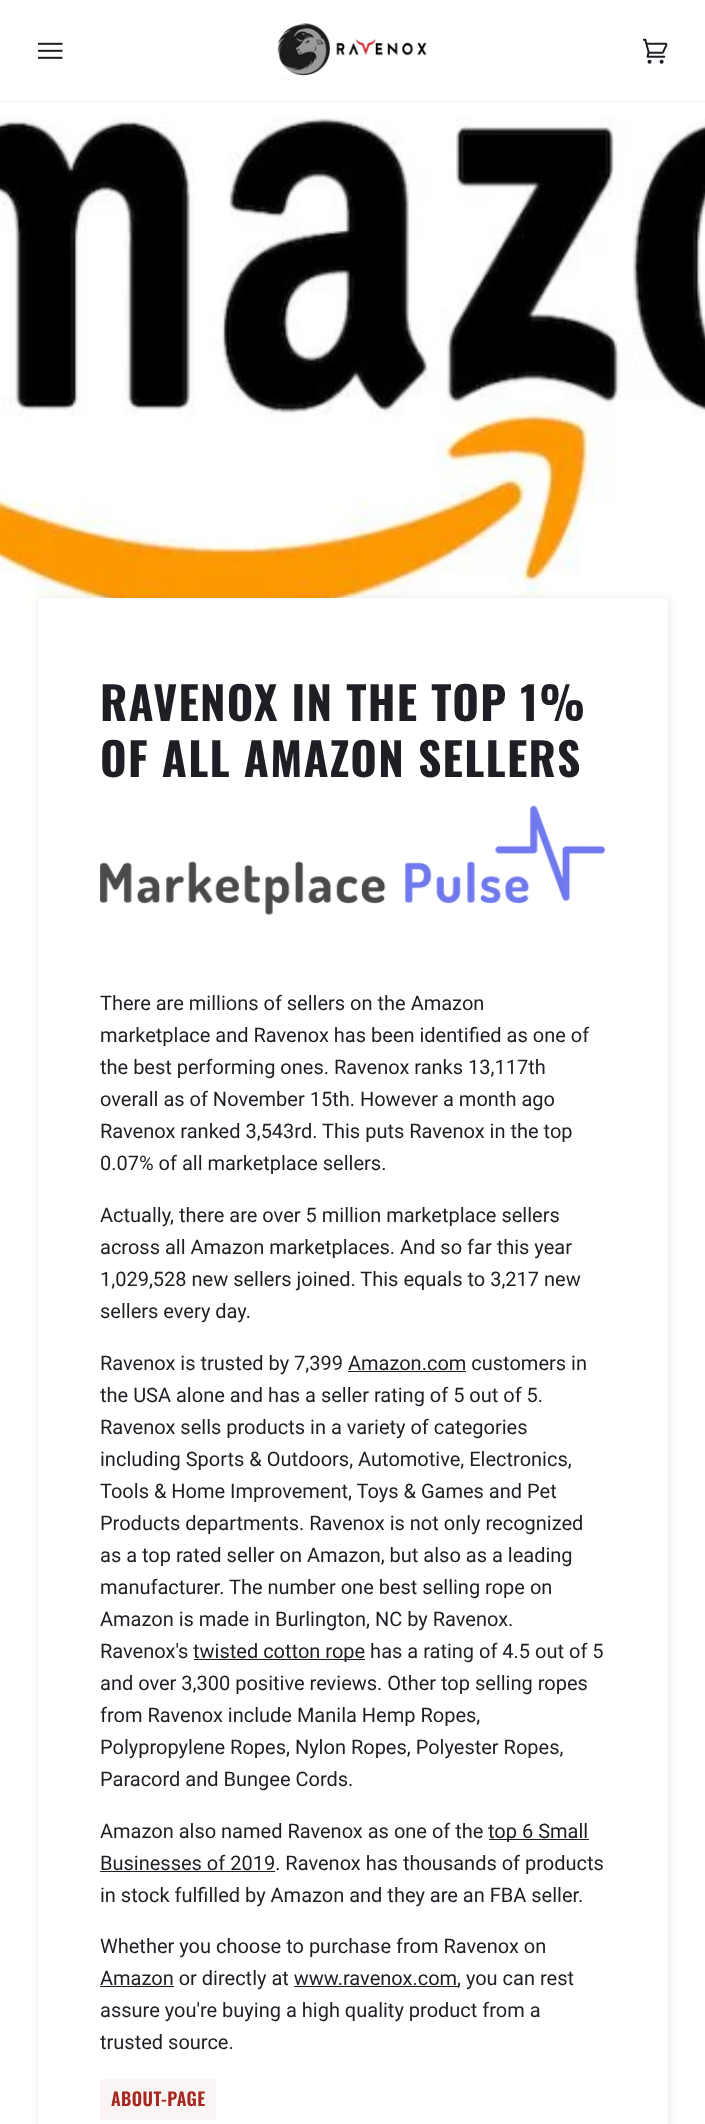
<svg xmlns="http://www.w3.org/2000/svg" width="705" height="2124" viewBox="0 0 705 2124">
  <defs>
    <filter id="blur1" x="-50%" y="-200%" width="200%" height="500%"><feGaussianBlur stdDeviation="4.5"/></filter>
  </defs>
  <rect width="100%" height="100%" fill="#ffffff"/>
  <rect x="0" y="101" width="705" height="1" fill="#f8f0e7"/>
  <image x="38" y="42" width="25" height="17" href="img1.png"/>
  <image x="277" y="23" width="150" height="57" href="img2.png"/>
  <image x="643" y="38" width="25" height="26" href="img3.png"/>
  <image x="0" y="117" width="705" height="526" href="img4.png"/>
  <rect x="39" y="599" width="630" height="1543" rx="4" fill="#000000" fill-opacity="0.1" filter="url(#blur1)"/>
  <rect x="38" y="598" width="630" height="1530" rx="4" fill="#ffffff"/>
  <text x="100" y="721" font-family="Oswald" font-size="45.5" font-weight="bold" letter-spacing="1.25" fill="#1e1e24">RAVENOX IN THE TOP 1%</text>
  <text x="100" y="777" font-family="Oswald" font-size="45.5" font-weight="bold" letter-spacing="1.25" fill="#1e1e24">OF ALL AMAZON SELLERS</text>
  <image x="100" y="805" width="505" height="110" href="img5.png"/>
  <text x="100" y="1010" font-family="Roboto" font-size="20" fill="#1e1e24">There are millions of sellers on the Amazon</text>
  <text x="100" y="1042" font-family="Roboto" font-size="20" fill="#1e1e24">marketplace and Ravenox has been identified as one of</text>
  <text x="100" y="1074" font-family="Roboto" font-size="20" fill="#1e1e24">the best performing ones. Ravenox ranks 13,117th</text>
  <text x="100" y="1106" font-family="Roboto" font-size="20" fill="#1e1e24">overall as of November 15th. However a month ago</text>
  <text x="100" y="1138" font-family="Roboto" font-size="20" fill="#1e1e24">Ravenox ranked 3,543rd. This puts Ravenox in the top</text>
  <text x="100" y="1170" font-family="Roboto" font-size="20" fill="#1e1e24">0.07% of all marketplace sellers.</text>
  <text x="100" y="1222" font-family="Roboto" font-size="20" fill="#1e1e24">Actually, there are over 5 million marketplace sellers</text>
  <text x="100" y="1254" font-family="Roboto" font-size="20" fill="#1e1e24">across all Amazon marketplaces. And so far this year</text>
  <text x="100" y="1286" font-family="Roboto" font-size="20" fill="#1e1e24">1,029,528 new sellers joined. This equals to 3,217 new</text>
  <text x="100" y="1318" font-family="Roboto" font-size="20" fill="#1e1e24">sellers every day.</text>
  <text x="100" y="1370" font-family="Roboto" font-size="20" fill="#1e1e24">Ravenox is trusted by 7,399 Amazon.com customers in</text>
  <rect x="348" y="1371" width="118" height="1" fill="#1e1e24"/>
  <text x="100" y="1402" font-family="Roboto" font-size="20" fill="#1e1e24">the USA alone and has a seller rating of 5 out of 5.</text>
  <text x="100" y="1434" font-family="Roboto" font-size="20" fill="#1e1e24">Ravenox sells products in a variety of categories</text>
  <text x="100" y="1466" font-family="Roboto" font-size="20" fill="#1e1e24">including Sports &amp; Outdoors, Automotive, Electronics,</text>
  <text x="100" y="1498" font-family="Roboto" font-size="20" fill="#1e1e24">Tools &amp; Home Improvement, Toys &amp; Games and Pet</text>
  <text x="100" y="1530" font-family="Roboto" font-size="20" fill="#1e1e24">Products departments. Ravenox is not only recognized</text>
  <text x="100" y="1562" font-family="Roboto" font-size="20" fill="#1e1e24">as a top rated seller on Amazon, but also as a leading</text>
  <text x="100" y="1594" font-family="Roboto" font-size="20" fill="#1e1e24">manufacturer. The number one best selling rope on</text>
  <text x="100" y="1626" font-family="Roboto" font-size="20" fill="#1e1e24">Amazon is made in Burlington, NC by Ravenox.</text>
  <text x="100" y="1658" font-family="Roboto" font-size="20" fill="#1e1e24">Ravenox's</text>
  <rect x="194" y="1659" width="171" height="1" fill="#1e1e24"/>
  <text x="193" y="1658" font-family="Roboto" font-size="20" fill="#1e1e24">twisted cotton rope has a rating of 4.5 out of 5</text>
  <text x="100" y="1690" font-family="Roboto" font-size="20" fill="#1e1e24">and over 3,300 positive reviews. Other top selling ropes</text>
  <text x="100" y="1722" font-family="Roboto" font-size="20" fill="#1e1e24">from Ravenox include Manila Hemp Ropes,</text>
  <text x="100" y="1754" font-family="Roboto" font-size="20" fill="#1e1e24">Polypropylene Ropes, Nylon Ropes, Polyester Ropes,</text>
  <text x="100" y="1786" font-family="Roboto" font-size="20" fill="#1e1e24">Paracord and Bungee Cords.</text>
  <text x="100" y="1838" font-family="Roboto" font-size="20" fill="#1e1e24">Amazon also named Ravenox as one of the</text>
  <rect x="489" y="1839" width="100" height="1" fill="#1e1e24"/>
  <text x="488" y="1838" font-family="Roboto" font-size="20" fill="#1e1e24">top 6 Small</text>
  <rect x="100" y="1871" width="175" height="1" fill="#1e1e24"/>
  <text x="100" y="1870" font-family="Roboto" font-size="20" fill="#1e1e24">Businesses of 2019. Ravenox has thousands of products</text>
  <text x="100" y="1902" font-family="Roboto" font-size="20" fill="#1e1e24">in stock fulfilled by Amazon and they are an FBA seller.</text>
  <text x="100" y="1953" font-family="Roboto" font-size="20" fill="#1e1e24">Whether you choose to purchase from Ravenox on</text>
  <rect x="100" y="1986" width="74" height="1" fill="#1e1e24"/>
  <text x="100" y="1985" font-family="Roboto" font-size="20" fill="#1e1e24">Amazon or directly at www.ravenox.com</text>
  <rect x="294" y="1986" width="164" height="1" fill="#1e1e24"/>
  <text x="457" y="1985" font-family="Roboto" font-size="20" fill="#1e1e24">, you can rest</text>
  <text x="100" y="2017" font-family="Roboto" font-size="20" fill="#1e1e24">assure you're buying a high quality product from a</text>
  <text x="100" y="2049" font-family="Roboto" font-size="20" fill="#1e1e24">trusted source.</text>
  <rect x="100" y="2079" width="116" height="41" rx="2.5" fill="#fbf4f4"/>
  <text x="111" y="2106" font-family="Oswald" font-size="18" font-weight="600" letter-spacing="0.4" fill="#a5271f">ABOUT-PAGE</text>
</svg>
